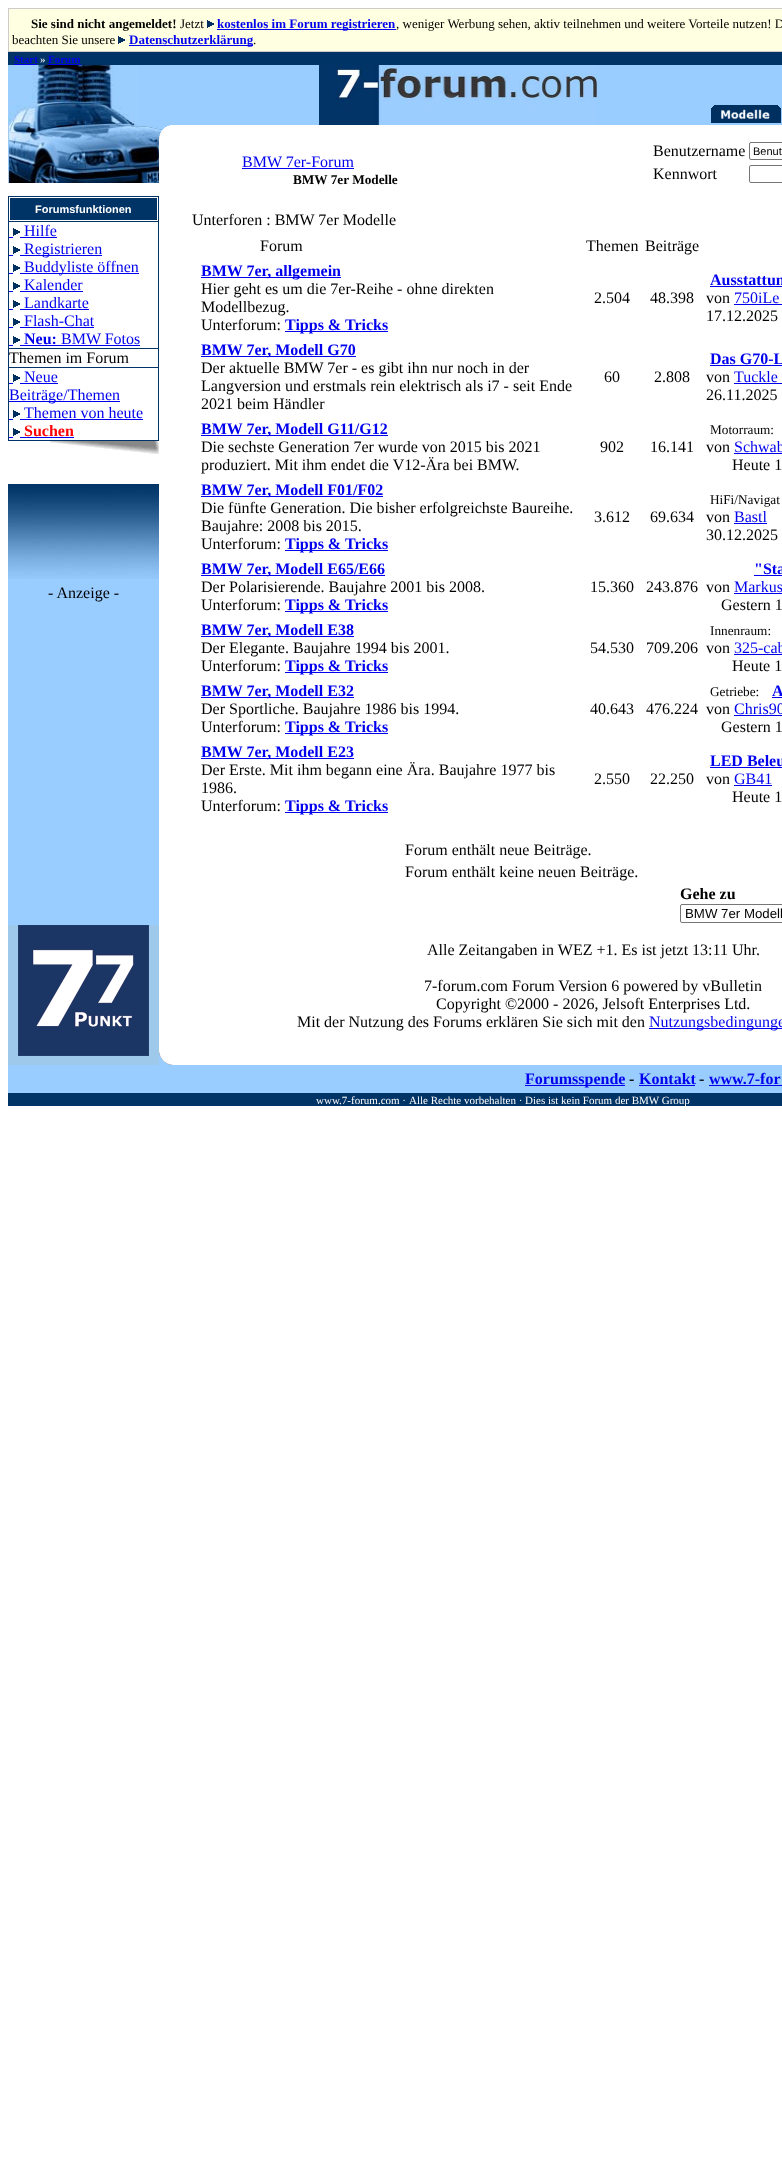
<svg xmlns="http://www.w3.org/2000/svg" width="782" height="2168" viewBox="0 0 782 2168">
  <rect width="100%" height="100%" fill="#ffffff"/>
  <rect x="8.5" y="8.5" width="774" height="43" fill="#ffffe1" stroke="#cccccc"/>
  <text x="31" y="28" font-family="Liberation Serif" font-size="13" font-weight="bold" fill="#000000">Sie sind nicht angemeldet!</text>
  <text x="180" y="28" font-family="Liberation Serif" font-size="13" fill="#000000">Jetzt</text>
  <image x="207" y="20" width="7" height="8" href="img1.png"/>
  <rect x="217" y="29" width="179" height="1" fill="#0000ee"/>
  <text x="217" y="28" font-family="Liberation Serif" font-size="13" font-weight="bold" fill="#0000ee">kostenlos im Forum registrieren</text>
  <text x="396" y="28" font-family="Liberation Serif" font-size="13" fill="#000000">, weniger Werbung sehen, aktiv teilnehmen und weitere Vorteile nutzen! D</text>
  <text x="12" y="44" font-family="Liberation Serif" font-size="13" fill="#000000">beachten Sie unsere</text>
  <image x="118" y="36" width="7" height="8" href="img1.png"/>
  <rect x="129" y="45" width="124" height="1" fill="#0000ee"/>
  <text x="129" y="44" font-family="Liberation Serif" font-size="13" font-weight="bold" fill="#0000ee">Datenschutzerklärung</text>
  <text x="253" y="44" font-family="Liberation Serif" font-size="13" fill="#000000">.</text>
  <rect x="138" y="65" width="644" height="60" fill="#99ccff"/>
  <rect x="8" y="52" width="774" height="13" fill="#003366"/>
  <text x="14" y="63" font-family="Liberation Serif" font-size="11" font-weight="bold" fill="#0000ee">Start</text>
  <rect x="14" y="64" width="23" height="1" fill="#0000ee"/>
  <text x="40" y="63" font-family="Liberation Serif" font-size="11" fill="#ffffff">»</text>
  <text x="48" y="63" font-family="Liberation Serif" font-size="11" font-weight="bold" fill="#0000ee">Forum</text>
  <rect x="48" y="64" width="33" height="1" fill="#0000ee"/>
  <image x="8" y="65" width="130" height="60" href="img2.png"/>
  <image x="319" y="65" width="278" height="60" href="img3.png"/>
  <image x="711" y="105" width="70" height="18" href="img4.png"/>
  <image x="159" y="125" width="11" height="14" href="img5.png"/>
  <rect x="8" y="579" width="151" height="346" fill="#99ccff"/>
  <image x="8" y="125" width="151" height="58" href="img6.png"/>
  <rect x="8" y="196" width="151" height="1" fill="#003366"/>
  <rect x="158" y="196" width="1" height="245" fill="#003366"/>
  <rect x="8" y="440" width="151" height="1" fill="#003366"/>
  <rect x="8" y="196" width="1" height="245" fill="#003366"/>
  <rect x="10" y="198" width="147" height="22" fill="#003366"/>
  <text x="35" y="213" font-family="Liberation Sans" font-size="11" font-weight="bold" fill="#ffffff">Forumsfunktionen</text>
  <rect x="8" y="221" width="151" height="1" fill="#003366"/>
  <image x="13" y="228" width="7" height="8" href="img7.png"/>
  <text x="24" y="236" font-family="Liberation Serif" font-size="16" fill="#0000ee">Hilfe</text>
  <rect x="9" y="237" width="4" height="1" fill="#0000ee"/>
  <rect x="20" y="237" width="37" height="1" fill="#0000ee"/>
  <image x="13" y="246" width="7" height="8" href="img7.png"/>
  <rect x="20" y="255" width="82" height="1" fill="#0000ee"/>
  <text x="24" y="254" font-family="Liberation Serif" font-size="16" fill="#0000ee">Registrieren</text>
  <rect x="9" y="255" width="4" height="1" fill="#0000ee"/>
  <image x="13" y="264" width="7" height="8" href="img7.png"/>
  <rect x="20" y="273" width="119" height="1" fill="#0000ee"/>
  <text x="24" y="272" font-family="Liberation Serif" font-size="16" fill="#0000ee">Buddyliste öffnen</text>
  <rect x="9" y="273" width="4" height="1" fill="#0000ee"/>
  <image x="13" y="282" width="7" height="8" href="img7.png"/>
  <text x="24" y="290" font-family="Liberation Serif" font-size="16" fill="#0000ee">Kalender</text>
  <rect x="9" y="291" width="4" height="1" fill="#0000ee"/>
  <rect x="20" y="291" width="63" height="1" fill="#0000ee"/>
  <image x="13" y="300" width="7" height="8" href="img7.png"/>
  <text x="24" y="308" font-family="Liberation Serif" font-size="16" fill="#0000ee">Landkarte</text>
  <rect x="9" y="309" width="4" height="1" fill="#0000ee"/>
  <rect x="20" y="309" width="69" height="1" fill="#0000ee"/>
  <image x="13" y="318" width="7" height="8" href="img7.png"/>
  <text x="24" y="326" font-family="Liberation Serif" font-size="16" fill="#0000ee">Flash-Chat</text>
  <rect x="9" y="327" width="4" height="1" fill="#0000ee"/>
  <rect x="20" y="327" width="74" height="1" fill="#0000ee"/>
  <image x="13" y="336" width="7" height="8" href="img7.png"/>
  <text x="24" y="344" font-family="Liberation Serif" font-size="16" font-weight="bold" fill="#0000ee">Neu:</text>
  <rect x="9" y="345" width="4" height="1" fill="#0000ee"/>
  <rect x="20" y="345" width="120" height="1" fill="#0000ee"/>
  <text x="61" y="344" font-family="Liberation Serif" font-size="16" fill="#0000ee">BMW Fotos</text>
  <rect x="8" y="348" width="151" height="1" fill="#003366"/>
  <text x="9" y="363" font-family="Liberation Serif" font-size="16" fill="#000000">Themen im Forum</text>
  <rect x="8" y="367" width="151" height="1" fill="#003366"/>
  <image x="13" y="374" width="7" height="8" href="img7.png"/>
  <text x="24" y="382" font-family="Liberation Serif" font-size="16" fill="#0000ee">Neue</text>
  <rect x="9" y="383" width="4" height="1" fill="#0000ee"/>
  <rect x="20" y="383" width="38" height="1" fill="#0000ee"/>
  <rect x="9" y="401" width="111" height="1" fill="#0000ee"/>
  <text x="9" y="400" font-family="Liberation Serif" font-size="16" fill="#0000ee">Beiträge/Themen</text>
  <image x="13" y="410" width="7" height="8" href="img7.png"/>
  <text x="24" y="418" font-family="Liberation Serif" font-size="16" fill="#0000ee">Themen von heute</text>
  <rect x="9" y="419" width="4" height="1" fill="#0000ee"/>
  <rect x="20" y="419" width="123" height="1" fill="#0000ee"/>
  <image x="13" y="428" width="7" height="8" href="img7.png"/>
  <text x="24" y="436" font-family="Liberation Serif" font-size="16" font-weight="bold" fill="#ff0000">Suchen</text>
  <rect x="9" y="437" width="4" height="1" fill="#0000ee"/>
  <rect x="20" y="437" width="54" height="1" fill="#0000ee"/>
  <image x="8" y="441" width="151" height="13" href="img8.png"/>
  <image x="8" y="484" width="151" height="95" href="img9.png"/>
  <text x="48" y="598" font-family="Liberation Serif" font-size="16" fill="#000000">- Anzeige -</text>
  <text x="242" y="167" font-family="Liberation Serif" font-size="16" fill="#0000ee">BMW 7er-Forum</text>
  <rect x="242" y="168" width="112" height="1" fill="#0000ee"/>
  <text x="293" y="184" font-family="Liberation Serif" font-size="13.25" font-weight="bold" fill="#000000">BMW 7er Modelle</text>
  <text x="653" y="156" font-family="Liberation Serif" font-size="16" fill="#000000">Benutzername</text>
  <rect x="749.5" y="142.5" width="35" height="17" rx="1.5" fill="none" stroke="#767676"/>
  <text x="753" y="155" font-family="Liberation Sans" font-size="11" fill="#000000">Benut</text>
  <text x="653" y="179" font-family="Liberation Serif" font-size="16" fill="#000000">Kennwort</text>
  <rect x="749.5" y="165.5" width="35" height="17" rx="1.5" fill="none" stroke="#767676"/>
  <text x="192" y="225" font-family="Liberation Serif" font-size="16" fill="#000000">Unterforen : BMW 7er Modelle</text>
  <text x="260" y="251" font-family="Liberation Serif" font-size="16" fill="#000000">Forum</text>
  <text x="586" y="251" font-family="Liberation Serif" font-size="16" fill="#000000">Themen</text>
  <text x="645" y="251" font-family="Liberation Serif" font-size="16" fill="#000000">Beiträge</text>
  <rect x="201" y="277" width="140" height="1" fill="#0000ee"/>
  <text x="201" y="276" font-family="Liberation Serif" font-size="16" font-weight="bold" fill="#0000ee">BMW 7er, allgemein</text>
  <text x="201" y="294" font-family="Liberation Serif" font-size="16" fill="#000000">Hier geht es um die 7er-Reihe - ohne direkten</text>
  <text x="201" y="312" font-family="Liberation Serif" font-size="16" fill="#000000">Modellbezug.</text>
  <text x="201" y="330" font-family="Liberation Serif" font-size="16" fill="#000000">Unterforum:</text>
  <rect x="285" y="331" width="103" height="1" fill="#0000ee"/>
  <text x="285" y="330" font-family="Liberation Serif" font-size="16" font-weight="bold" fill="#0000ee">Tipps &amp; Tricks</text>
  <text x="594" y="303" font-family="Liberation Serif" font-size="16" fill="#000000">2.504</text>
  <text x="650" y="303" font-family="Liberation Serif" font-size="16" fill="#000000">48.398</text>
  <text x="710" y="285" font-family="Liberation Serif" font-size="16" font-weight="bold" fill="#0000ee">Ausstattun</text>
  <rect x="710" y="286" width="72" height="1" fill="#0000ee"/>
  <text x="706" y="303" font-family="Liberation Serif" font-size="16" fill="#000000">von</text>
  <text x="734" y="303" font-family="Liberation Serif" font-size="16" fill="#0000ee">750iLe</text>
  <rect x="734" y="304" width="48" height="1" fill="#0000ee"/>
  <text x="706" y="321" font-family="Liberation Serif" font-size="16" fill="#000000">17.12.2025</text>
  <rect x="201" y="356" width="155" height="1" fill="#0000ee"/>
  <text x="201" y="355" font-family="Liberation Serif" font-size="16" font-weight="bold" fill="#0000ee">BMW 7er, Modell G70</text>
  <text x="201" y="373" font-family="Liberation Serif" font-size="16" fill="#000000">Der aktuelle BMW 7er - es gibt ihn nur noch in der</text>
  <text x="201" y="391" font-family="Liberation Serif" font-size="16" fill="#000000">Langversion und erstmals rein elektrisch als i7 - seit Ende</text>
  <text x="201" y="409" font-family="Liberation Serif" font-size="16" fill="#000000">2021 beim Händler</text>
  <text x="604" y="382" font-family="Liberation Serif" font-size="16" fill="#000000">60</text>
  <text x="654" y="382" font-family="Liberation Serif" font-size="16" fill="#000000">2.808</text>
  <text x="710" y="364" font-family="Liberation Serif" font-size="16" font-weight="bold" fill="#0000ee">Das G70-L</text>
  <rect x="710" y="365" width="72" height="1" fill="#0000ee"/>
  <text x="706" y="382" font-family="Liberation Serif" font-size="16" fill="#000000">von</text>
  <text x="734" y="382" font-family="Liberation Serif" font-size="16" fill="#0000ee">Tuckle</text>
  <rect x="734" y="383" width="48" height="1" fill="#0000ee"/>
  <text x="706" y="400" font-family="Liberation Serif" font-size="16" fill="#000000">26.11.2025</text>
  <rect x="201" y="435" width="187" height="1" fill="#0000ee"/>
  <text x="201" y="434" font-family="Liberation Serif" font-size="16" font-weight="bold" fill="#0000ee">BMW 7er, Modell G11/G12</text>
  <text x="201" y="452" font-family="Liberation Serif" font-size="16" fill="#000000">Die sechste Generation 7er wurde von 2015 bis 2021</text>
  <text x="201" y="470" font-family="Liberation Serif" font-size="16" fill="#000000">produziert. Mit ihm endet die V12-Ära bei BMW.</text>
  <text x="600" y="452" font-family="Liberation Serif" font-size="16" fill="#000000">902</text>
  <text x="650" y="452" font-family="Liberation Serif" font-size="16" fill="#000000">16.141</text>
  <text x="710" y="434" font-family="Liberation Serif" font-size="13.25" fill="#000000">Motorraum:</text>
  <text x="706" y="452" font-family="Liberation Serif" font-size="16" fill="#000000">von</text>
  <text x="734" y="452" font-family="Liberation Serif" font-size="16" fill="#0000ee">Schwab</text>
  <rect x="734" y="453" width="48" height="1" fill="#0000ee"/>
  <text x="732" y="470" font-family="Liberation Serif" font-size="16" fill="#000000">Heute 1</text>
  <rect x="201" y="496" width="182" height="1" fill="#0000ee"/>
  <text x="201" y="495" font-family="Liberation Serif" font-size="16" font-weight="bold" fill="#0000ee">BMW 7er, Modell F01/F02</text>
  <text x="201" y="513" font-family="Liberation Serif" font-size="16" fill="#000000">Die fünfte Generation. Die bisher erfolgreichste Baureihe.</text>
  <text x="201" y="531" font-family="Liberation Serif" font-size="16" fill="#000000">Baujahre: 2008 bis 2015.</text>
  <text x="201" y="549" font-family="Liberation Serif" font-size="16" fill="#000000">Unterforum:</text>
  <rect x="285" y="550" width="103" height="1" fill="#0000ee"/>
  <text x="285" y="549" font-family="Liberation Serif" font-size="16" font-weight="bold" fill="#0000ee">Tipps &amp; Tricks</text>
  <text x="594" y="522" font-family="Liberation Serif" font-size="16" fill="#000000">3.612</text>
  <text x="650" y="522" font-family="Liberation Serif" font-size="16" fill="#000000">69.634</text>
  <text x="710" y="504" font-family="Liberation Serif" font-size="13.25" fill="#000000">HiFi/Navigat</text>
  <text x="706" y="522" font-family="Liberation Serif" font-size="16" fill="#000000">von</text>
  <text x="734" y="522" font-family="Liberation Serif" font-size="16" fill="#0000ee">Bastl</text>
  <rect x="734" y="523" width="33" height="1" fill="#0000ee"/>
  <text x="706" y="540" font-family="Liberation Serif" font-size="16" fill="#000000">30.12.2025</text>
  <rect x="201" y="575" width="184" height="1" fill="#0000ee"/>
  <text x="201" y="574" font-family="Liberation Serif" font-size="16" font-weight="bold" fill="#0000ee">BMW 7er, Modell E65/E66</text>
  <text x="201" y="592" font-family="Liberation Serif" font-size="16" fill="#000000">Der Polarisierende. Baujahre 2001 bis 2008.</text>
  <text x="201" y="610" font-family="Liberation Serif" font-size="16" fill="#000000">Unterforum:</text>
  <rect x="285" y="611" width="103" height="1" fill="#0000ee"/>
  <text x="285" y="610" font-family="Liberation Serif" font-size="16" font-weight="bold" fill="#0000ee">Tipps &amp; Tricks</text>
  <text x="590" y="592" font-family="Liberation Serif" font-size="16" fill="#000000">15.360</text>
  <text x="646" y="592" font-family="Liberation Serif" font-size="16" fill="#000000">243.876</text>
  <text x="754" y="574" font-family="Liberation Serif" font-size="16" font-weight="bold" fill="#0000ee">"Sta</text>
  <rect x="754" y="575" width="28" height="1" fill="#0000ee"/>
  <text x="706" y="592" font-family="Liberation Serif" font-size="16" fill="#000000">von</text>
  <text x="734" y="592" font-family="Liberation Serif" font-size="16" fill="#0000ee">Markus</text>
  <rect x="734" y="593" width="48" height="1" fill="#0000ee"/>
  <text x="721" y="610" font-family="Liberation Serif" font-size="16" fill="#000000">Gestern 1</text>
  <rect x="201" y="636" width="153" height="1" fill="#0000ee"/>
  <text x="201" y="635" font-family="Liberation Serif" font-size="16" font-weight="bold" fill="#0000ee">BMW 7er, Modell E38</text>
  <text x="201" y="653" font-family="Liberation Serif" font-size="16" fill="#000000">Der Elegante. Baujahre 1994 bis 2001.</text>
  <text x="201" y="671" font-family="Liberation Serif" font-size="16" fill="#000000">Unterforum:</text>
  <rect x="285" y="672" width="103" height="1" fill="#0000ee"/>
  <text x="285" y="671" font-family="Liberation Serif" font-size="16" font-weight="bold" fill="#0000ee">Tipps &amp; Tricks</text>
  <text x="590" y="653" font-family="Liberation Serif" font-size="16" fill="#000000">54.530</text>
  <text x="646" y="653" font-family="Liberation Serif" font-size="16" fill="#000000">709.206</text>
  <text x="710" y="635" font-family="Liberation Serif" font-size="13.25" fill="#000000">Innenraum:</text>
  <text x="706" y="653" font-family="Liberation Serif" font-size="16" fill="#000000">von</text>
  <text x="734" y="653" font-family="Liberation Serif" font-size="16" fill="#0000ee">325-cab</text>
  <rect x="734" y="654" width="48" height="1" fill="#0000ee"/>
  <text x="732" y="671" font-family="Liberation Serif" font-size="16" fill="#000000">Heute 1</text>
  <rect x="201" y="697" width="153" height="1" fill="#0000ee"/>
  <text x="201" y="696" font-family="Liberation Serif" font-size="16" font-weight="bold" fill="#0000ee">BMW 7er, Modell E32</text>
  <text x="201" y="714" font-family="Liberation Serif" font-size="16" fill="#000000">Der Sportliche. Baujahre 1986 bis 1994.</text>
  <text x="201" y="732" font-family="Liberation Serif" font-size="16" fill="#000000">Unterforum:</text>
  <rect x="285" y="733" width="103" height="1" fill="#0000ee"/>
  <text x="285" y="732" font-family="Liberation Serif" font-size="16" font-weight="bold" fill="#0000ee">Tipps &amp; Tricks</text>
  <text x="590" y="714" font-family="Liberation Serif" font-size="16" fill="#000000">40.643</text>
  <text x="646" y="714" font-family="Liberation Serif" font-size="16" fill="#000000">476.224</text>
  <text x="710" y="696" font-family="Liberation Serif" font-size="13.25" fill="#000000">Getriebe:</text>
  <text x="772" y="696" font-family="Liberation Serif" font-size="16" font-weight="bold" fill="#0000ee">A</text>
  <rect x="772" y="697" width="10" height="1" fill="#0000ee"/>
  <text x="706" y="714" font-family="Liberation Serif" font-size="16" fill="#000000">von</text>
  <text x="734" y="714" font-family="Liberation Serif" font-size="16" fill="#0000ee">Chris90</text>
  <rect x="734" y="715" width="48" height="1" fill="#0000ee"/>
  <text x="721" y="732" font-family="Liberation Serif" font-size="16" fill="#000000">Gestern 1</text>
  <rect x="201" y="758" width="153" height="1" fill="#0000ee"/>
  <text x="201" y="757" font-family="Liberation Serif" font-size="16" font-weight="bold" fill="#0000ee">BMW 7er, Modell E23</text>
  <text x="201" y="775" font-family="Liberation Serif" font-size="16" fill="#000000">Der Erste. Mit ihm begann eine Ära. Baujahre 1977 bis</text>
  <text x="201" y="793" font-family="Liberation Serif" font-size="16" fill="#000000">1986.</text>
  <text x="201" y="811" font-family="Liberation Serif" font-size="16" fill="#000000">Unterforum:</text>
  <rect x="285" y="812" width="103" height="1" fill="#0000ee"/>
  <text x="285" y="811" font-family="Liberation Serif" font-size="16" font-weight="bold" fill="#0000ee">Tipps &amp; Tricks</text>
  <text x="594" y="784" font-family="Liberation Serif" font-size="16" fill="#000000">2.550</text>
  <text x="650" y="784" font-family="Liberation Serif" font-size="16" fill="#000000">22.250</text>
  <text x="710" y="766" font-family="Liberation Serif" font-size="16" font-weight="bold" fill="#0000ee">LED Beleu</text>
  <rect x="710" y="767" width="72" height="1" fill="#0000ee"/>
  <text x="706" y="784" font-family="Liberation Serif" font-size="16" fill="#000000">von</text>
  <text x="734" y="784" font-family="Liberation Serif" font-size="16" fill="#0000ee">GB41</text>
  <rect x="734" y="785" width="38" height="1" fill="#0000ee"/>
  <text x="732" y="802" font-family="Liberation Serif" font-size="16" fill="#000000">Heute 1</text>
  <text x="405" y="855" font-family="Liberation Serif" font-size="16" fill="#000000">Forum enthält neue Beiträge.</text>
  <text x="405" y="877" font-family="Liberation Serif" font-size="16" fill="#000000">Forum enthält keine neuen Beiträge.</text>
  <text x="680" y="899" font-family="Liberation Serif" font-size="16" font-weight="bold" fill="#000000">Gehe zu</text>
  <rect x="680.5" y="904.5" width="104" height="18" rx="1.5" fill="none" stroke="#767676"/>
  <text x="685" y="918" font-family="Liberation Sans" font-size="13.25" fill="#000000">BMW 7er Modell</text>
  <image x="8" y="925" width="151" height="140" href="img10.png"/>
  <text x="427" y="955" font-family="Liberation Serif" font-size="16" fill="#000000">Alle Zeitangaben in WEZ +1. Es ist jetzt 13:11 Uhr.</text>
  <text x="424" y="991" font-family="Liberation Serif" font-size="16" fill="#000000">7-forum.com Forum Version 6 powered by vBulletin</text>
  <text x="436" y="1009" font-family="Liberation Serif" font-size="16" fill="#000000">Copyright ©2000 - 2026, Jelsoft Enterprises Ltd.</text>
  <text x="297" y="1027" font-family="Liberation Serif" font-size="16" fill="#000000">Mit der Nutzung des Forums erklären Sie sich mit den</text>
  <rect x="649" y="1028" width="133" height="1" fill="#0000ee"/>
  <text x="649" y="1027" font-family="Liberation Serif" font-size="16" fill="#0000ee">Nutzungsbedingunge</text>
  <image x="159" y="1052" width="14" height="13" href="img11.png"/>
  <rect x="8" y="1065" width="774" height="28" fill="#99ccff"/>
  <rect x="525" y="1085" width="100" height="1" fill="#0000ee"/>
  <text x="525" y="1084" font-family="Liberation Serif" font-size="16" font-weight="bold" fill="#0000ee">Forumsspende</text>
  <text x="629" y="1084" font-family="Liberation Serif" font-size="16" font-weight="bold" fill="#000000">-</text>
  <text x="639" y="1084" font-family="Liberation Serif" font-size="16" font-weight="bold" fill="#0000ee">Kontakt</text>
  <rect x="639" y="1085" width="56" height="1" fill="#0000ee"/>
  <text x="699" y="1084" font-family="Liberation Serif" font-size="16" font-weight="bold" fill="#000000">-</text>
  <text x="709" y="1084" font-family="Liberation Serif" font-size="16" font-weight="bold" fill="#0000ee">www.7-for</text>
  <rect x="709" y="1085" width="73" height="1" fill="#0000ee"/>
  <rect x="8" y="1093" width="774" height="13" fill="#003366"/>
  <text x="316" y="1104" font-family="Liberation Serif" font-size="11" fill="#ffffff">www.7-forum.com ·</text>
  <text x="409" y="1104" font-family="Liberation Serif" font-size="11" fill="#ffffff">Alle Rechte vorbehalten · Dies ist kein Forum der BMW Group</text>
</svg>
